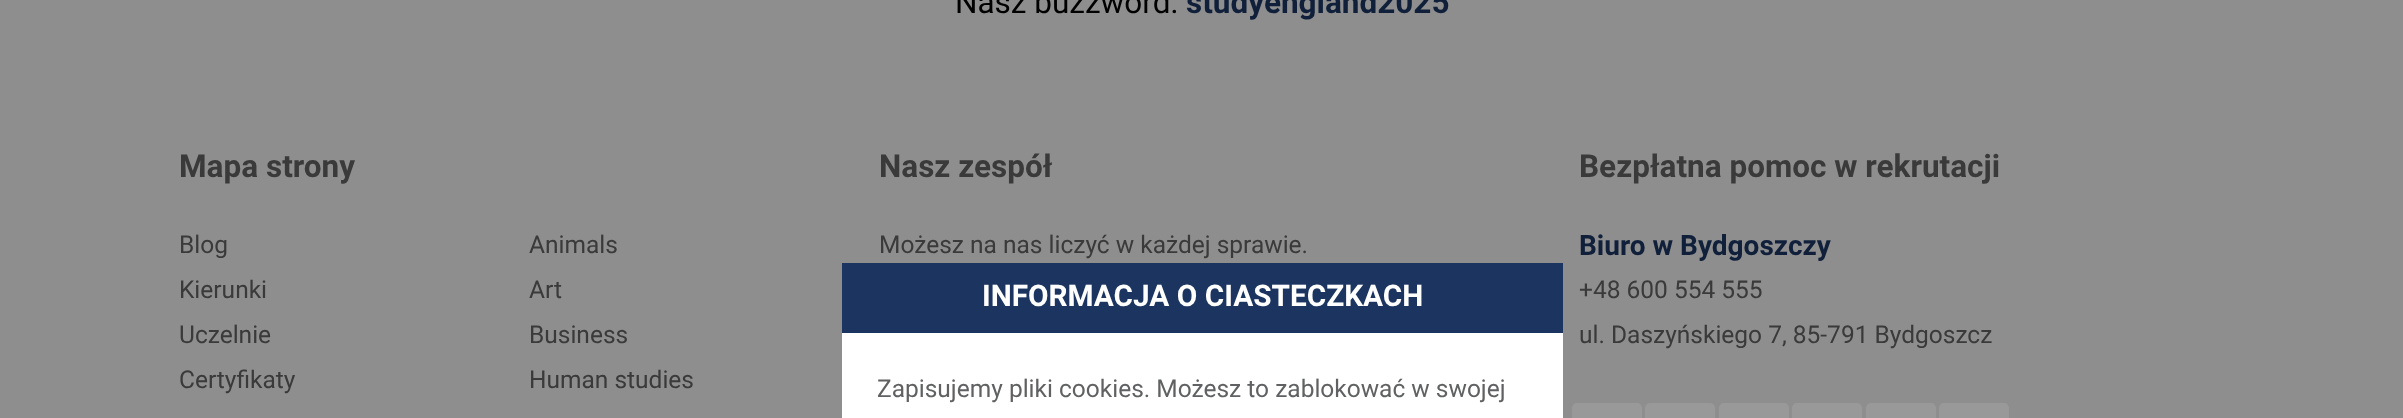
<svg xmlns="http://www.w3.org/2000/svg" width="2403" height="418" viewBox="0 0 2403 418">
  <rect width="100%" height="100%" fill="#8e8e8e"/>
  <text x="955" y="13" font-family="Roboto" font-size="31.5" fill="#000000">Nasz buzzword:</text>
  <text x="1186" y="13" font-family="Roboto" font-size="31.5" font-weight="bold" fill="#10203a">studyengland2025</text>
  <text x="179" y="177" font-family="Roboto" font-size="31.5" font-weight="bold" fill="#3a3a3b">Mapa strony</text>
  <text x="179" y="253" font-family="Roboto" font-size="24.5" fill="#3a3a3b">Blog</text>
  <text x="179" y="298" font-family="Roboto" font-size="24.5" fill="#3a3a3b">Kierunki</text>
  <text x="179" y="343" font-family="Roboto" font-size="24.5" fill="#3a3a3b">Uczelnie</text>
  <text x="179" y="388" font-family="Roboto" font-size="24.5" fill="#3a3a3b">Certyfikaty</text>
  <text x="529" y="253" font-family="Roboto" font-size="24.5" fill="#3a3a3b">Animals</text>
  <text x="529" y="298" font-family="Roboto" font-size="24.5" fill="#3a3a3b">Art</text>
  <text x="529" y="343" font-family="Roboto" font-size="24.5" fill="#3a3a3b">Business</text>
  <text x="529" y="388" font-family="Roboto" font-size="24.5" fill="#3a3a3b">Human studies</text>
  <text x="879" y="177" font-family="Roboto" font-size="31.5" font-weight="bold" fill="#3a3a3b">Nasz zespół</text>
  <text x="879" y="253" font-family="Roboto" font-size="24.5" fill="#3a3a3b">Możesz na nas liczyć w każdej sprawie.</text>
  <text x="1579" y="177" font-family="Roboto" font-size="31.5" font-weight="bold" fill="#3a3a3b">Bezpłatna pomoc w rekrutacji</text>
  <text x="1579" y="255" font-family="Roboto" font-size="28" font-weight="bold" fill="#10203a">Biuro w Bydgoszczy</text>
  <text x="1579" y="298" font-family="Roboto" font-size="24.5" fill="#3a3a3b">+48 600 554 555</text>
  <text x="1579" y="343" font-family="Roboto" font-size="24.5" fill="#3a3a3b">ul. Daszyńskiego 7, 85-791 Bydgoszcz</text>
  <rect x="1572" y="403" width="70" height="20" rx="5" fill="#999999"/>
  <rect x="1645" y="403" width="70" height="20" rx="5" fill="#999999"/>
  <rect x="1719" y="403" width="70" height="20" rx="5" fill="#999999"/>
  <rect x="1792" y="403" width="70" height="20" rx="5" fill="#999999"/>
  <rect x="1866" y="403" width="70" height="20" rx="5" fill="#999999"/>
  <rect x="1939" y="403" width="70" height="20" rx="5" fill="#999999"/>
  <rect x="842" y="333" width="721" height="85" fill="#ffffff"/>
  <rect x="842" y="263" width="721" height="70" fill="#1b3560"/>
  <text x="982" y="306" font-family="Roboto" font-size="29.75" font-weight="bold" fill="#ffffff">INFORMACJA O CIASTECZKACH</text>
  <text x="877" y="397" font-family="Roboto" font-size="24.5" fill="#606162">Zapisujemy pliki cookies. Możesz to zablokować w swojej</text>
</svg>
